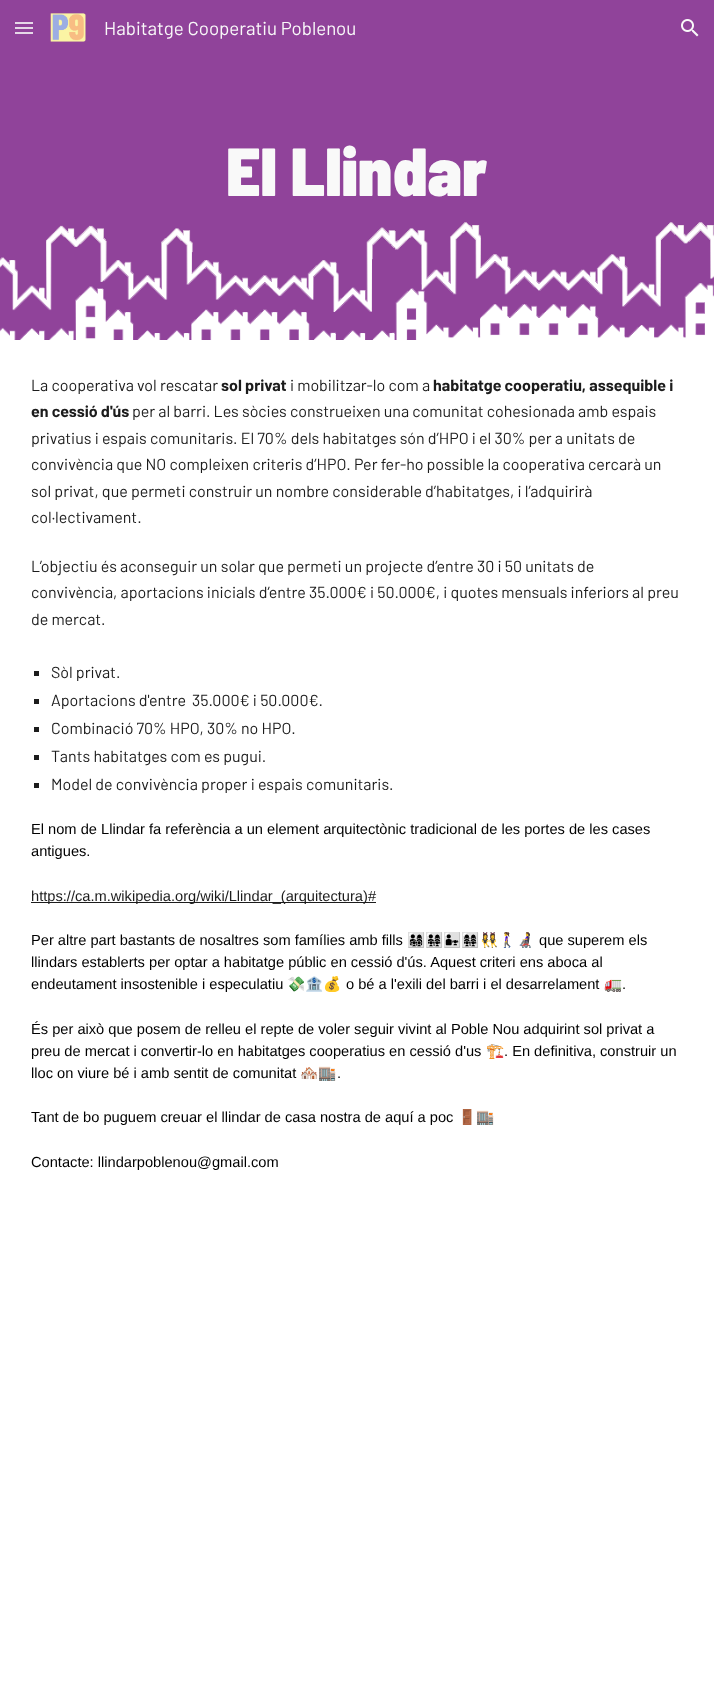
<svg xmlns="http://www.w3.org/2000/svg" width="714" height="1694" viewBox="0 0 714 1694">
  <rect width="100%" height="100%" fill="#ffffff"/>
  <image x="0" y="0" width="714" height="340" href="img3.png"/>
  <rect x="15" y="22" width="18" height="2" fill="#e6d8e8"/>
  <rect x="15" y="27" width="18" height="2" fill="#e6d8e8"/>
  <rect x="15" y="32" width="18" height="2" fill="#e6d8e8"/>
  <image x="50" y="13" width="36" height="29" href="img1.png"/>
  <text x="104" y="35" font-family="Barlow" font-size="18.7" fill="#f9f9f9">Habitatge Cooperatiu Poblenou</text>
  <image x="681" y="19" width="18" height="18" href="img2.png"/>
  <text x="226" y="196" font-family="Barlow Semi Condensed" font-size="68" font-weight="900" fill="#f9f9f9">El Llindar</text>
  <text x="31" y="391" font-family="Barlow" font-size="16" fill="#1c1c1c">La cooperativa vol rescatar</text>
  <text x="221" y="391" font-family="Barlow" font-size="16" font-weight="bold" fill="#1c1c1c">sol privat</text>
  <text x="290" y="391" font-family="Barlow" font-size="16" fill="#1c1c1c">i mobilitzar-lo com a</text>
  <text x="433" y="391" font-family="Barlow" font-size="16" font-weight="bold" fill="#1c1c1c">habitatge cooperatiu, assequible i</text>
  <text x="31" y="417" font-family="Barlow" font-size="16" font-weight="bold" fill="#1c1c1c">en cessió d'ús</text>
  <text x="132" y="417" font-family="Barlow" font-size="16" fill="#1c1c1c">per al barri. Les sòcies construeixen una comunitat cohesionada amb espais</text>
  <text x="31" y="444" font-family="Barlow" font-size="16" fill="#1c1c1c">privatius i espais comunitaris. El 70% dels habitatges són d’HPO i el 30% per a unitats de</text>
  <text x="31" y="470" font-family="Barlow" font-size="16" fill="#1c1c1c">convivència que NO compleixen criteris d’HPO. Per fer-ho possible la cooperativa cercarà un</text>
  <text x="31" y="497" font-family="Barlow" font-size="16" fill="#1c1c1c">sol privat, que permeti construir un nombre considerable d’habitatges, i l’adquirirà</text>
  <text x="31" y="523" font-family="Barlow" font-size="16" fill="#1c1c1c">col·lectivament.</text>
  <text x="31" y="572" font-family="Barlow" font-size="16" fill="#1c1c1c">L’objectiu és aconseguir un solar que permeti un projecte d’entre 30 i 50 unitats de</text>
  <text x="31" y="598" font-family="Barlow" font-size="16" fill="#1c1c1c">convivència, aportacions inicials d’entre 35.000€ i 50.000€, i quotes mensuals inferiors al preu</text>
  <text x="31" y="625" font-family="Barlow" font-size="16" fill="#1c1c1c">de mercat.</text>
  <rect x="34" y="671" width="5" height="5" fill="#1c1c1c"/>
  <text x="51" y="678" font-family="Barlow" font-size="16" fill="#1c1c1c">Sòl privat.</text>
  <rect x="34" y="699" width="5" height="5" fill="#1c1c1c"/>
  <text x="51" y="706" font-family="Barlow" font-size="16" fill="#1c1c1c">Aportacions d'entre</text>
  <text x="192" y="706" font-family="Barlow" font-size="16" fill="#1c1c1c">35.000€ i 50.000€.</text>
  <rect x="34" y="727" width="5" height="5" fill="#1c1c1c"/>
  <text x="51" y="734" font-family="Barlow" font-size="16" fill="#1c1c1c">Combinació 70% HPO, 30% no HPO.</text>
  <rect x="34" y="755" width="5" height="5" fill="#1c1c1c"/>
  <text x="51" y="762" font-family="Barlow" font-size="16" fill="#1c1c1c">Tants habitatges com es pugui.</text>
  <rect x="34" y="783" width="5" height="5" fill="#1c1c1c"/>
  <text x="51" y="790" font-family="Barlow" font-size="16" fill="#1c1c1c">Model de convivència proper i espais comunitaris.</text>
  <text x="31" y="834" font-family="Liberation Sans" font-size="14.65" fill="#000000">El nom de Llindar fa referència a un element arquitectònic tradicional de les portes de les cases</text>
  <text x="31" y="856" font-family="Liberation Sans" font-size="14.65" fill="#000000">antigues.</text>
  <rect x="31" y="902" width="345" height="1" fill="#1c1c1c"/>
  <text x="31" y="901" font-family="Liberation Sans" font-size="14.65" fill="#1c1c1c">https://ca.m.wikipedia.org/wiki/Llindar_(arquitectura)#</text>
  <text x="31" y="945" font-family="Liberation Sans" font-size="14.65" fill="#000000">Per altre part bastants de nosaltres som famílies amb fills</text>
  <text x="407" y="945" font-family="Noto Color Emoji" font-size="14.65" fill="#000000">👨‍👩‍👧‍👦👨‍👩‍👧‍👧👨‍👧👩‍👩‍👧‍👧👯‍♀️🚶‍♀️👩‍🦼</text>
  <text x="539" y="945" font-family="Liberation Sans" font-size="14.65" fill="#000000">que superem els</text>
  <text x="31" y="967" font-family="Liberation Sans" font-size="14.65" fill="#000000">llindars establerts per optar a habitatge públic en cessió d'ús. Aquest criteri ens aboca al</text>
  <text x="31" y="989" font-family="Liberation Sans" font-size="14.65" fill="#000000">endeutament insostenible i especulatiu</text>
  <text x="287" y="989" font-family="Noto Color Emoji" font-size="14.65" fill="#000000">💸🏦💰</text>
  <text x="346" y="989" font-family="Liberation Sans" font-size="14.65" fill="#000000">o bé a l'exili del barri i el desarrelament</text>
  <text x="604" y="989" font-family="Noto Color Emoji" font-size="14.65" fill="#000000">🚛</text>
  <text x="622" y="989" font-family="Liberation Sans" font-size="14.65" fill="#000000">.</text>
  <text x="31" y="1034" font-family="Liberation Sans" font-size="14.65" fill="#000000">És per això que posem de relleu el repte de voler seguir vivint al Poble Nou adquirint sol privat a</text>
  <text x="31" y="1056" font-family="Liberation Sans" font-size="14.65" fill="#000000">preu de mercat i convertir-lo en habitatges cooperatius en cessió d'us</text>
  <text x="486" y="1056" font-family="Noto Color Emoji" font-size="14.65" fill="#000000">🏗️</text>
  <text x="504" y="1056" font-family="Liberation Sans" font-size="14.65" fill="#000000">. En definitiva, construir un</text>
  <text x="31" y="1078" font-family="Liberation Sans" font-size="14.65" fill="#000000">lloc on viure bé i amb sentit de comunitat</text>
  <text x="300" y="1078" font-family="Noto Color Emoji" font-size="14.65" fill="#000000">🏘️🏬</text>
  <text x="337" y="1078" font-family="Liberation Sans" font-size="14.65" fill="#000000">.</text>
  <text x="31" y="1122" font-family="Liberation Sans" font-size="14.65" fill="#000000">Tant de bo puguem creuar el llindar de casa nostra de aquí a poc</text>
  <text x="458" y="1122" font-family="Noto Color Emoji" font-size="14.65" fill="#000000">🚪🏬</text>
  <text x="31" y="1167" font-family="Liberation Sans" font-size="14.65" fill="#000000">Contacte: llindarpoblenou@gmail.com</text>
</svg>
